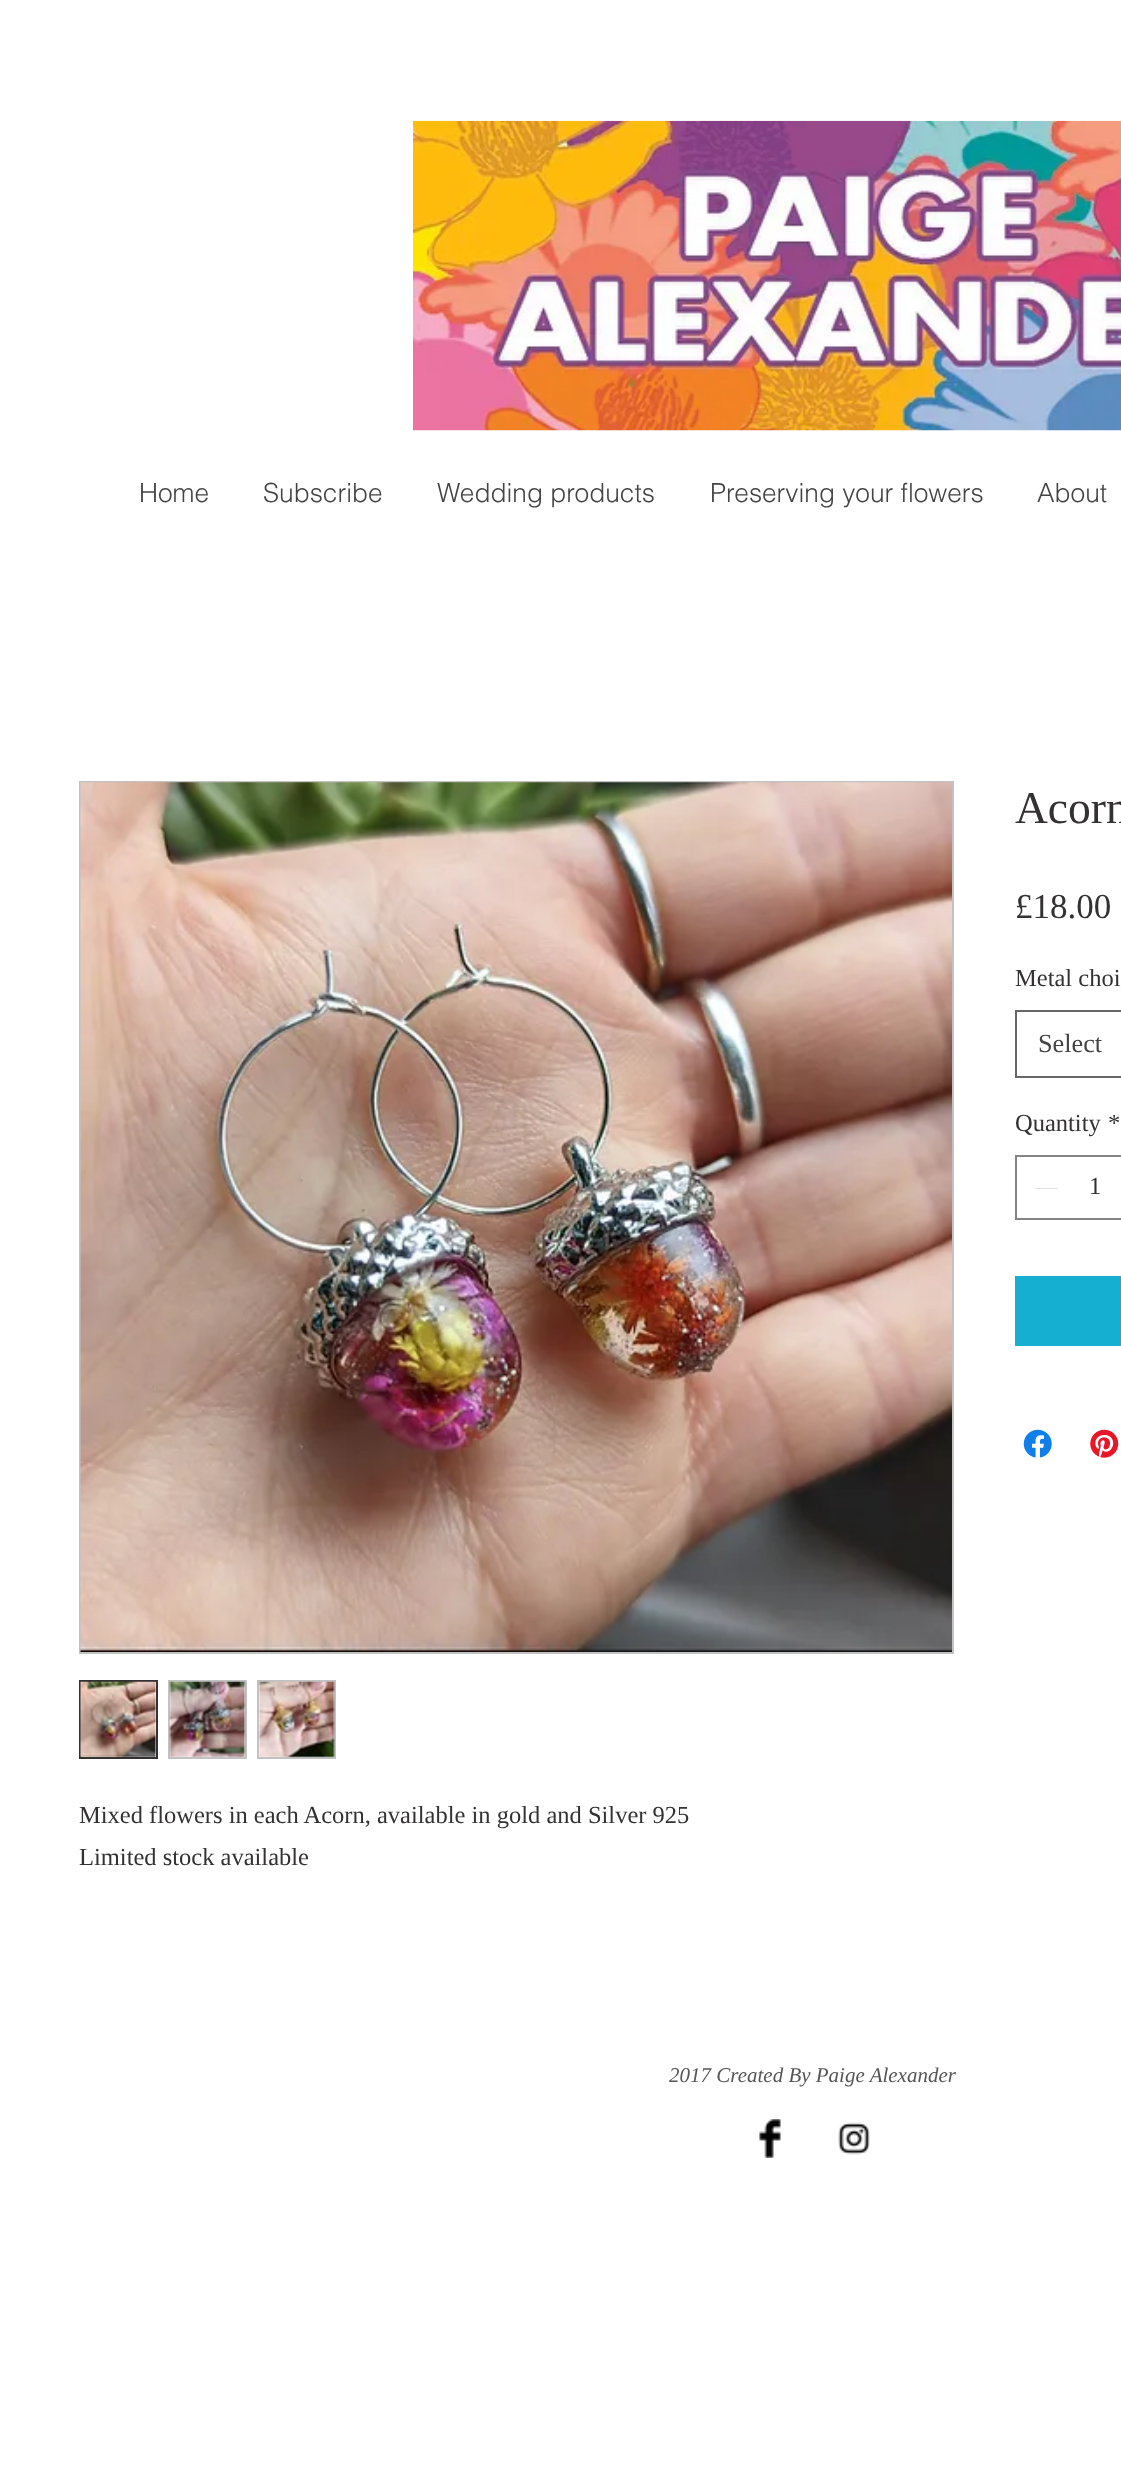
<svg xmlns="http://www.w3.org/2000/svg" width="1121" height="2492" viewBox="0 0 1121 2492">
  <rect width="100%" height="100%" fill="#ffffff"/>
  <image x="413" y="120" width="708" height="311" href="img1.png"/>
  <text x="139" y="502" font-family="helvetica" font-size="26.25" font-weight="300" fill="#444444">Home</text>
  <text x="263" y="502" font-family="helvetica" font-size="26.25" font-weight="300" fill="#444444">Subscribe</text>
  <text x="437" y="502" font-family="helvetica" font-size="26.25" font-weight="300" fill="#444444">Wedding products</text>
  <text x="710" y="502" font-family="helvetica" font-size="26.25" font-weight="300" fill="#444444">Preserving your flowers</text>
  <text x="1037" y="502" font-family="helvetica" font-size="26.25" font-weight="300" fill="#444444">About</text>
  <text x="1015" y="823" font-family="Liberation Serif" font-size="45.5" fill="#333131">Acorn</text>
  <text x="1015" y="918" font-family="Liberation Serif" font-size="35" fill="#333131">£18.00</text>
  <text x="1015" y="986" font-family="Liberation Serif" font-size="24.5" fill="#333131">Metal choi</text>
  <rect x="1016" y="1011" width="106" height="66" fill="none" stroke="#666666" stroke-width="2"/>
  <text x="1038" y="1052" font-family="Liberation Serif" font-size="26.25" fill="#444444">Select</text>
  <text x="1015" y="1131" font-family="Liberation Serif" font-size="24.5" fill="#333131">Quantity</text>
  <text x="1108" y="1131" font-family="Liberation Serif" font-size="24.5" fill="#333131">*</text>
  <rect x="1016" y="1156" width="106" height="63" fill="none" stroke="#858383" stroke-width="2"/>
  <rect x="1035" y="1188" width="23" height="1" fill="#e3e3e3"/>
  <text x="1089" y="1194" font-family="Liberation Serif" font-size="24.5" fill="#333131">1</text>
  <rect x="1015" y="1276" width="106" height="70" fill="#15afd1"/>
  <image x="1023" y="1429" width="29" height="29" href="img2.png"/>
  <image x="1090" y="1429" width="29" height="29" href="img3.png"/>
  <rect x="80" y="782" width="873" height="871" fill="none" stroke="#c2c2c2" stroke-width="2"/>
  <image x="80" y="782" width="872" height="870" href="img4.png"/>
  <rect x="80" y="1681" width="77" height="77" fill="none" stroke="#333131" stroke-width="2"/>
  <image x="80" y="1681" width="77" height="77" href="img5.png"/>
  <rect x="169" y="1681" width="77" height="77" fill="none" stroke="#c2c2c2" stroke-width="2"/>
  <image x="169" y="1681" width="77" height="76" href="img6.png"/>
  <rect x="258" y="1681" width="77" height="77" fill="none" stroke="#c2c2c2" stroke-width="2"/>
  <image x="258" y="1681" width="77" height="77" href="img7.png"/>
  <text x="79" y="1823" font-family="Liberation Serif" font-size="24.5" fill="#333131">Mixed flowers in each Acorn, available in gold and Silver 925</text>
  <text x="79" y="1865" font-family="Liberation Serif" font-size="24.5" fill="#333131">Limited stock available</text>
  <text x="669" y="2082" font-family="Liberation Serif" font-size="21" font-style="italic" fill="#575656">2017 Created By Paige Alexander</text>
  <image x="759" y="2119" width="22" height="39" href="img8.png"/>
  <image x="838" y="2122" width="32" height="33" href="img9.png"/>
</svg>
